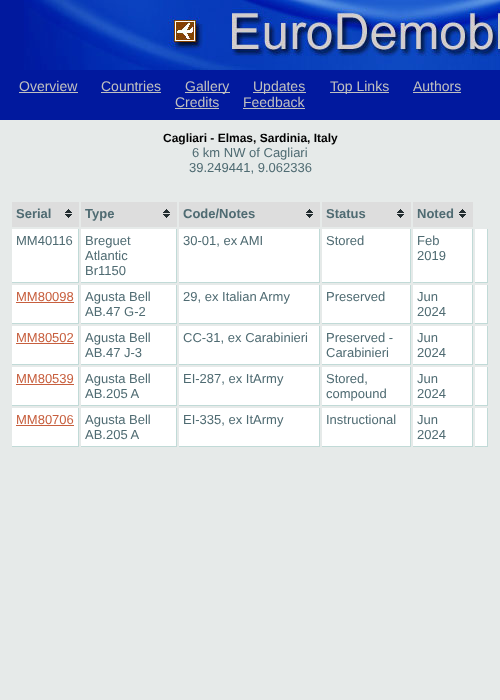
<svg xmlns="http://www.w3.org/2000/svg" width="500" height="700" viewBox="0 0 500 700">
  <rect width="100%" height="100%" fill="#e6eae9"/>
  <rect x="0" y="0" width="500" height="120" fill="#01199e"/>
  <image x="24" y="0" width="476" height="70" href="img1.png"/>
  <text x="19" y="91" font-family="Liberation Sans" font-size="14" fill="#c0c0c0">Overview</text>
  <rect x="19" y="92" width="59" height="1" fill="#c0c0c0"/>
  <text x="101" y="91" font-family="Liberation Sans" font-size="14" fill="#c0c0c0">Countries</text>
  <rect x="101" y="92" width="60" height="1" fill="#c0c0c0"/>
  <rect x="185" y="92" width="45" height="1" fill="#c0c0c0"/>
  <text x="185" y="91" font-family="Liberation Sans" font-size="14" fill="#c0c0c0">Gallery</text>
  <rect x="253" y="92" width="53" height="1" fill="#c0c0c0"/>
  <text x="253" y="91" font-family="Liberation Sans" font-size="14" fill="#c0c0c0">Updates</text>
  <rect x="330" y="92" width="59" height="1" fill="#c0c0c0"/>
  <text x="330" y="91" font-family="Liberation Sans" font-size="14" fill="#c0c0c0">Top Links</text>
  <text x="413" y="91" font-family="Liberation Sans" font-size="14" fill="#c0c0c0">Authors</text>
  <rect x="413" y="92" width="48" height="1" fill="#c0c0c0"/>
  <text x="175" y="107" font-family="Liberation Sans" font-size="14" fill="#c0c0c0">Credits</text>
  <rect x="175" y="108" width="44" height="1" fill="#c0c0c0"/>
  <text x="243" y="107" font-family="Liberation Sans" font-size="14" fill="#c0c0c0">Feedback</text>
  <rect x="243" y="108" width="62" height="1" fill="#c0c0c0"/>
  <text x="163" y="142" font-family="Liberation Sans" font-size="12" font-weight="bold" fill="#000000">Cagliari - Elmas, Sardinia, Italy</text>
  <text x="192" y="157" font-family="Liberation Sans" font-size="13" fill="#4f6b72">6 km NW of Cagliari</text>
  <text x="189" y="172" font-family="Liberation Sans" font-size="13" fill="#4f6b72">39.249441, 9.062336</text>
  <rect x="12" y="202" width="67" height="25" fill="#dddddd"/>
  <image x="65" y="209" width="7" height="9" href="img2.png"/>
  <text x="16" y="218" font-family="Liberation Sans" font-size="13" font-weight="bold" fill="#4f6b72">Serial</text>
  <rect x="81" y="202" width="96" height="25" fill="#dddddd"/>
  <image x="163" y="209" width="7" height="9" href="img2.png"/>
  <text x="85" y="218" font-family="Liberation Sans" font-size="13" font-weight="bold" fill="#4f6b72">Type</text>
  <rect x="179" y="202" width="141" height="25" fill="#dddddd"/>
  <image x="306" y="209" width="7" height="9" href="img2.png"/>
  <text x="183" y="218" font-family="Liberation Sans" font-size="13" font-weight="bold" fill="#4f6b72">Code/Notes</text>
  <rect x="322" y="202" width="89" height="25" fill="#dddddd"/>
  <image x="397" y="209" width="7" height="9" href="img2.png"/>
  <text x="326" y="218" font-family="Liberation Sans" font-size="13" font-weight="bold" fill="#4f6b72">Status</text>
  <rect x="413" y="202" width="60" height="25" fill="#dddddd"/>
  <image x="459" y="209" width="7" height="9" href="img2.png"/>
  <text x="417" y="218" font-family="Liberation Sans" font-size="13" font-weight="bold" fill="#4f6b72">Noted</text>
  <rect x="12" y="229" width="66" height="53" fill="#ffffff"/>
  <rect x="78" y="229" width="1" height="54" fill="#c1dad7"/>
  <rect x="12" y="282" width="67" height="1" fill="#c1dad7"/>
  <text x="16" y="245" font-family="Liberation Sans" font-size="13" fill="#4f6b72">MM40116</text>
  <rect x="81" y="229" width="95" height="53" fill="#ffffff"/>
  <rect x="176" y="229" width="1" height="54" fill="#c1dad7"/>
  <rect x="81" y="282" width="96" height="1" fill="#c1dad7"/>
  <text x="85" y="245" font-family="Liberation Sans" font-size="13" fill="#4f6b72">Breguet</text>
  <text x="85" y="260" font-family="Liberation Sans" font-size="13" fill="#4f6b72">Atlantic</text>
  <text x="85" y="275" font-family="Liberation Sans" font-size="13" fill="#4f6b72">Br1150</text>
  <rect x="179" y="229" width="140" height="53" fill="#ffffff"/>
  <rect x="319" y="229" width="1" height="54" fill="#c1dad7"/>
  <rect x="179" y="282" width="141" height="1" fill="#c1dad7"/>
  <text x="183" y="245" font-family="Liberation Sans" font-size="13" fill="#4f6b72">30-01, ex AMI</text>
  <rect x="322" y="229" width="88" height="53" fill="#ffffff"/>
  <rect x="410" y="229" width="1" height="54" fill="#c1dad7"/>
  <rect x="322" y="282" width="89" height="1" fill="#c1dad7"/>
  <text x="326" y="245" font-family="Liberation Sans" font-size="13" fill="#4f6b72">Stored</text>
  <rect x="413" y="229" width="59" height="53" fill="#ffffff"/>
  <rect x="472" y="229" width="1" height="54" fill="#c1dad7"/>
  <rect x="413" y="282" width="60" height="1" fill="#c1dad7"/>
  <text x="417" y="245" font-family="Liberation Sans" font-size="13" fill="#4f6b72">Feb</text>
  <text x="417" y="260" font-family="Liberation Sans" font-size="13" fill="#4f6b72">2019</text>
  <rect x="475" y="229" width="12" height="53" fill="#ffffff"/>
  <rect x="487" y="229" width="1" height="54" fill="#c1dad7"/>
  <rect x="475" y="282" width="13" height="1" fill="#c1dad7"/>
  <rect x="12" y="285" width="66" height="38" fill="#ffffff"/>
  <rect x="78" y="285" width="1" height="39" fill="#c1dad7"/>
  <rect x="12" y="323" width="67" height="1" fill="#c1dad7"/>
  <text x="16" y="301" font-family="Liberation Sans" font-size="13" fill="#c75f3e">MM80098</text>
  <rect x="16" y="302" width="58" height="1" fill="#c75f3e"/>
  <rect x="81" y="285" width="95" height="38" fill="#ffffff"/>
  <rect x="176" y="285" width="1" height="39" fill="#c1dad7"/>
  <rect x="81" y="323" width="96" height="1" fill="#c1dad7"/>
  <text x="85" y="301" font-family="Liberation Sans" font-size="13" fill="#4f6b72">Agusta Bell</text>
  <text x="85" y="316" font-family="Liberation Sans" font-size="13" fill="#4f6b72">AB.47 G-2</text>
  <rect x="179" y="285" width="140" height="38" fill="#ffffff"/>
  <rect x="319" y="285" width="1" height="39" fill="#c1dad7"/>
  <rect x="179" y="323" width="141" height="1" fill="#c1dad7"/>
  <text x="183" y="301" font-family="Liberation Sans" font-size="13" fill="#4f6b72">29, ex Italian Army</text>
  <rect x="322" y="285" width="88" height="38" fill="#ffffff"/>
  <rect x="410" y="285" width="1" height="39" fill="#c1dad7"/>
  <rect x="322" y="323" width="89" height="1" fill="#c1dad7"/>
  <text x="326" y="301" font-family="Liberation Sans" font-size="13" fill="#4f6b72">Preserved</text>
  <rect x="413" y="285" width="59" height="38" fill="#ffffff"/>
  <rect x="472" y="285" width="1" height="39" fill="#c1dad7"/>
  <rect x="413" y="323" width="60" height="1" fill="#c1dad7"/>
  <text x="417" y="301" font-family="Liberation Sans" font-size="13" fill="#4f6b72">Jun</text>
  <text x="417" y="316" font-family="Liberation Sans" font-size="13" fill="#4f6b72">2024</text>
  <rect x="475" y="285" width="12" height="38" fill="#ffffff"/>
  <rect x="487" y="285" width="1" height="39" fill="#c1dad7"/>
  <rect x="475" y="323" width="13" height="1" fill="#c1dad7"/>
  <rect x="12" y="326" width="66" height="38" fill="#ffffff"/>
  <rect x="78" y="326" width="1" height="39" fill="#c1dad7"/>
  <rect x="12" y="364" width="67" height="1" fill="#c1dad7"/>
  <text x="16" y="342" font-family="Liberation Sans" font-size="13" fill="#c75f3e">MM80502</text>
  <rect x="16" y="343" width="58" height="1" fill="#c75f3e"/>
  <rect x="81" y="326" width="95" height="38" fill="#ffffff"/>
  <rect x="176" y="326" width="1" height="39" fill="#c1dad7"/>
  <rect x="81" y="364" width="96" height="1" fill="#c1dad7"/>
  <text x="85" y="342" font-family="Liberation Sans" font-size="13" fill="#4f6b72">Agusta Bell</text>
  <text x="85" y="357" font-family="Liberation Sans" font-size="13" fill="#4f6b72">AB.47 J-3</text>
  <rect x="179" y="326" width="140" height="38" fill="#ffffff"/>
  <rect x="319" y="326" width="1" height="39" fill="#c1dad7"/>
  <rect x="179" y="364" width="141" height="1" fill="#c1dad7"/>
  <text x="183" y="342" font-family="Liberation Sans" font-size="13" fill="#4f6b72">CC-31, ex Carabinieri</text>
  <rect x="322" y="326" width="88" height="38" fill="#ffffff"/>
  <rect x="410" y="326" width="1" height="39" fill="#c1dad7"/>
  <rect x="322" y="364" width="89" height="1" fill="#c1dad7"/>
  <text x="326" y="342" font-family="Liberation Sans" font-size="13" fill="#4f6b72">Preserved -</text>
  <text x="326" y="357" font-family="Liberation Sans" font-size="13" fill="#4f6b72">Carabinieri</text>
  <rect x="413" y="326" width="59" height="38" fill="#ffffff"/>
  <rect x="472" y="326" width="1" height="39" fill="#c1dad7"/>
  <rect x="413" y="364" width="60" height="1" fill="#c1dad7"/>
  <text x="417" y="342" font-family="Liberation Sans" font-size="13" fill="#4f6b72">Jun</text>
  <text x="417" y="357" font-family="Liberation Sans" font-size="13" fill="#4f6b72">2024</text>
  <rect x="475" y="326" width="12" height="38" fill="#ffffff"/>
  <rect x="487" y="326" width="1" height="39" fill="#c1dad7"/>
  <rect x="475" y="364" width="13" height="1" fill="#c1dad7"/>
  <rect x="12" y="367" width="66" height="38" fill="#ffffff"/>
  <rect x="78" y="367" width="1" height="39" fill="#c1dad7"/>
  <rect x="12" y="405" width="67" height="1" fill="#c1dad7"/>
  <text x="16" y="383" font-family="Liberation Sans" font-size="13" fill="#c75f3e">MM80539</text>
  <rect x="16" y="384" width="58" height="1" fill="#c75f3e"/>
  <rect x="81" y="367" width="95" height="38" fill="#ffffff"/>
  <rect x="176" y="367" width="1" height="39" fill="#c1dad7"/>
  <rect x="81" y="405" width="96" height="1" fill="#c1dad7"/>
  <text x="85" y="383" font-family="Liberation Sans" font-size="13" fill="#4f6b72">Agusta Bell</text>
  <text x="85" y="398" font-family="Liberation Sans" font-size="13" fill="#4f6b72">AB.205 A</text>
  <rect x="179" y="367" width="140" height="38" fill="#ffffff"/>
  <rect x="319" y="367" width="1" height="39" fill="#c1dad7"/>
  <rect x="179" y="405" width="141" height="1" fill="#c1dad7"/>
  <text x="183" y="383" font-family="Liberation Sans" font-size="13" fill="#4f6b72">EI-287, ex ItArmy</text>
  <rect x="322" y="367" width="88" height="38" fill="#ffffff"/>
  <rect x="410" y="367" width="1" height="39" fill="#c1dad7"/>
  <rect x="322" y="405" width="89" height="1" fill="#c1dad7"/>
  <text x="326" y="383" font-family="Liberation Sans" font-size="13" fill="#4f6b72">Stored,</text>
  <text x="326" y="398" font-family="Liberation Sans" font-size="13" fill="#4f6b72">compound</text>
  <rect x="413" y="367" width="59" height="38" fill="#ffffff"/>
  <rect x="472" y="367" width="1" height="39" fill="#c1dad7"/>
  <rect x="413" y="405" width="60" height="1" fill="#c1dad7"/>
  <text x="417" y="383" font-family="Liberation Sans" font-size="13" fill="#4f6b72">Jun</text>
  <text x="417" y="398" font-family="Liberation Sans" font-size="13" fill="#4f6b72">2024</text>
  <rect x="475" y="367" width="12" height="38" fill="#ffffff"/>
  <rect x="487" y="367" width="1" height="39" fill="#c1dad7"/>
  <rect x="475" y="405" width="13" height="1" fill="#c1dad7"/>
  <rect x="12" y="408" width="66" height="38" fill="#ffffff"/>
  <rect x="78" y="408" width="1" height="39" fill="#c1dad7"/>
  <rect x="12" y="446" width="67" height="1" fill="#c1dad7"/>
  <text x="16" y="424" font-family="Liberation Sans" font-size="13" fill="#c75f3e">MM80706</text>
  <rect x="16" y="425" width="58" height="1" fill="#c75f3e"/>
  <rect x="81" y="408" width="95" height="38" fill="#ffffff"/>
  <rect x="176" y="408" width="1" height="39" fill="#c1dad7"/>
  <rect x="81" y="446" width="96" height="1" fill="#c1dad7"/>
  <text x="85" y="424" font-family="Liberation Sans" font-size="13" fill="#4f6b72">Agusta Bell</text>
  <text x="85" y="439" font-family="Liberation Sans" font-size="13" fill="#4f6b72">AB.205 A</text>
  <rect x="179" y="408" width="140" height="38" fill="#ffffff"/>
  <rect x="319" y="408" width="1" height="39" fill="#c1dad7"/>
  <rect x="179" y="446" width="141" height="1" fill="#c1dad7"/>
  <text x="183" y="424" font-family="Liberation Sans" font-size="13" fill="#4f6b72">EI-335, ex ItArmy</text>
  <rect x="322" y="408" width="88" height="38" fill="#ffffff"/>
  <rect x="410" y="408" width="1" height="39" fill="#c1dad7"/>
  <rect x="322" y="446" width="89" height="1" fill="#c1dad7"/>
  <text x="326" y="424" font-family="Liberation Sans" font-size="13" fill="#4f6b72">Instructional</text>
  <rect x="413" y="408" width="59" height="38" fill="#ffffff"/>
  <rect x="472" y="408" width="1" height="39" fill="#c1dad7"/>
  <rect x="413" y="446" width="60" height="1" fill="#c1dad7"/>
  <text x="417" y="424" font-family="Liberation Sans" font-size="13" fill="#4f6b72">Jun</text>
  <text x="417" y="439" font-family="Liberation Sans" font-size="13" fill="#4f6b72">2024</text>
  <rect x="475" y="408" width="12" height="38" fill="#ffffff"/>
  <rect x="487" y="408" width="1" height="39" fill="#c1dad7"/>
  <rect x="475" y="446" width="13" height="1" fill="#c1dad7"/>
</svg>
